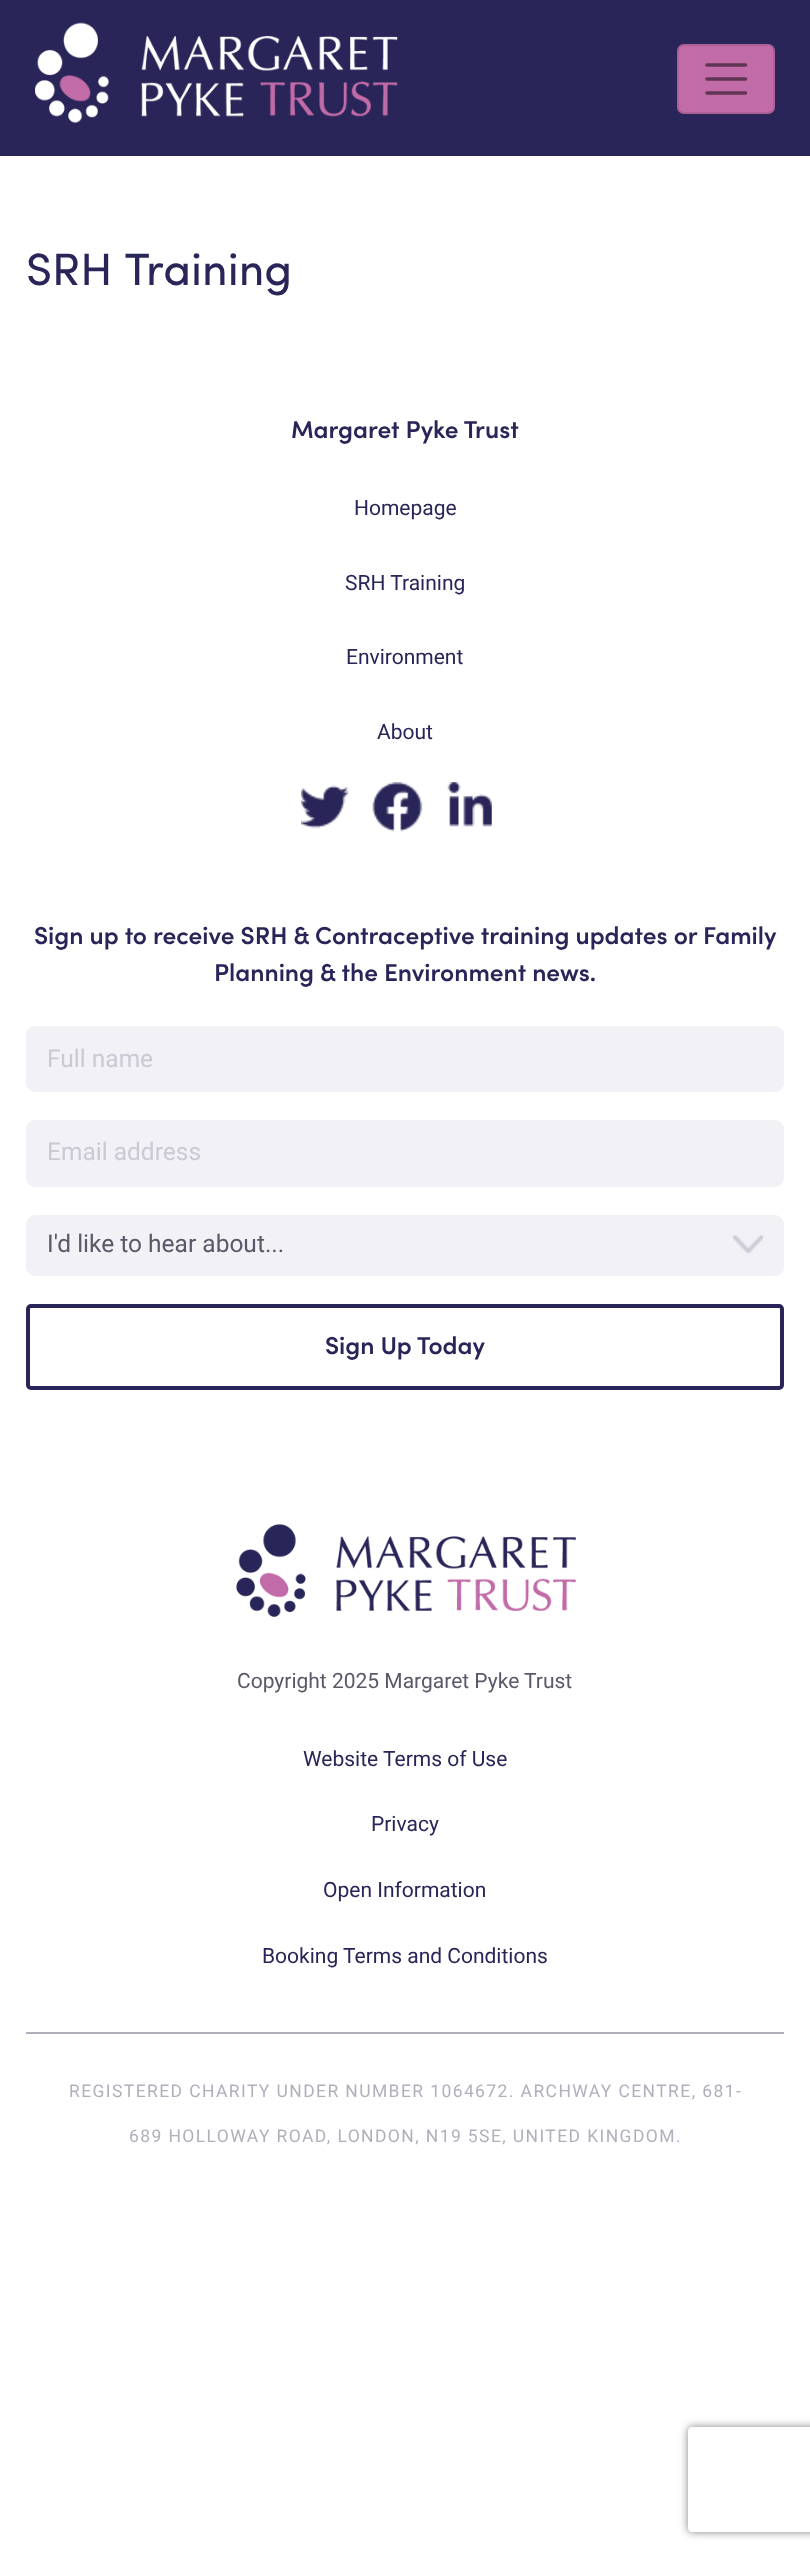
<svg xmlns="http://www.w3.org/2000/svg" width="810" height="2556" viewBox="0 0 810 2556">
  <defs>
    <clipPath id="clip1"><path d="M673 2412H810V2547H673ZM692 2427H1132C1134 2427 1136 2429 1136 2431V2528C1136 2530 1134 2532 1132 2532H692C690 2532 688 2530 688 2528V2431C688 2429 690 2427 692 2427Z" clip-rule="evenodd"/></clipPath>
    <filter id="blur1" x="-50%" y="-200%" width="200%" height="500%"><feGaussianBlur stdDeviation="4.5"/></filter>
  </defs>
  <rect width="100%" height="100%" fill="#ffffff"/>
  <rect x="0" y="0" width="810" height="156" fill="#292558"/>
  <image x="35" y="22" width="363" height="101" href="img1.png"/>
  <rect x="677" y="44" width="98" height="70" rx="7" fill="#c16ba8"/>
  <rect x="678" y="45" width="96" height="68" rx="6" fill="none" stroke="#000000" stroke-opacity="0.1" stroke-width="2"/>
  <path d="M707 65H745.5M707 79H745.5M707 93H745.5" fill="none" stroke="#613654" stroke-width="3.5" stroke-linecap="round"/>
  <text x="26" y="285" font-family="Sofia" font-size="45.5" fill="#292558">SRH Training</text>
  <text x="291" y="438" font-family="Sofia" font-size="24.5" font-weight="600" fill="#292558">Margaret Pyke Trust</text>
  <text x="354" y="515" font-family="Roboto" font-size="21" fill="#292558">Homepage</text>
  <text x="345" y="590" font-family="Roboto" font-size="21" fill="#292558">SRH Training</text>
  <text x="346" y="664" font-family="Roboto" font-size="21" fill="#292558">Environment</text>
  <text x="377" y="739" font-family="Roboto" font-size="21" fill="#292558">About</text>
  <image x="301" y="785" width="48" height="44" href="img2.png"/>
  <image x="372" y="782" width="51" height="50" href="img3.png"/>
  <image x="447" y="782" width="45" height="45" href="img4.png"/>
  <text x="34" y="944" font-family="Sofia" font-size="24.5" font-weight="600" fill="#292558">Sign up to receive SRH &amp; Contraceptive training updates or Family</text>
  <text x="214" y="981" font-family="Sofia" font-size="24.5" font-weight="600" fill="#292558">Planning &amp; the Environment news.</text>
  <rect x="26" y="1026" width="758" height="66" rx="9" fill="#f1f1f6"/>
  <text x="47" y="1067" font-family="Roboto" font-size="24.5" fill="#cac9d4">Full name</text>
  <rect x="26" y="1120" width="758" height="67" rx="9" fill="#f1f1f6"/>
  <text x="47" y="1160" font-family="Roboto" font-size="24.5" fill="#cac9d4">Email address</text>
  <rect x="26" y="1215" width="758" height="61" rx="9" fill="#f1f1f6"/>
  <image x="733" y="1235" width="30" height="18" href="img5.png"/>
  <text x="47" y="1252" font-family="Roboto" font-size="24.5" fill="#5b5969">I'd like to hear about...</text>
  <rect x="28" y="1306" width="754" height="82" rx="3" fill="none" stroke="#292558" stroke-width="4"/>
  <text x="325" y="1354" font-family="Sofia" font-size="24.5" font-weight="600" fill="#292558">Sign Up Today</text>
  <image x="236" y="1524" width="340" height="93" href="img6.png"/>
  <text x="237" y="1688" font-family="Roboto" font-size="21" fill="#5b5969">Copyright 2025 Margaret Pyke Trust</text>
  <text x="303" y="1766" font-family="Roboto" font-size="21" fill="#292558">Website Terms of Use</text>
  <text x="371" y="1831" font-family="Roboto" font-size="21" fill="#292558">Privacy</text>
  <text x="323" y="1897" font-family="Roboto" font-size="21" fill="#292558">Open Information</text>
  <text x="262" y="1963" font-family="Roboto" font-size="21" fill="#292558">Booking Terms and Conditions</text>
  <rect x="26" y="2032" width="758" height="2" fill="#b1afbb"/>
  <text x="69" y="2097" font-family="Roboto" font-size="17.5" letter-spacing="1.4" fill="#b1afbb">REGISTERED CHARITY UNDER NUMBER 1064672. ARCHWAY CENTRE, 681-</text>
  <text x="129" y="2142" font-family="Roboto" font-size="17.5" letter-spacing="1.4" fill="#b1afbb">689 HOLLOWAY ROAD, LONDON, N19 5SE, UNITED KINGDOM.</text>
  <g clip-path="url(#clip1)">
    <rect x="688" y="2427" width="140" height="105" rx="4" fill="#808080" filter="url(#blur1)"/>
  </g>
</svg>
